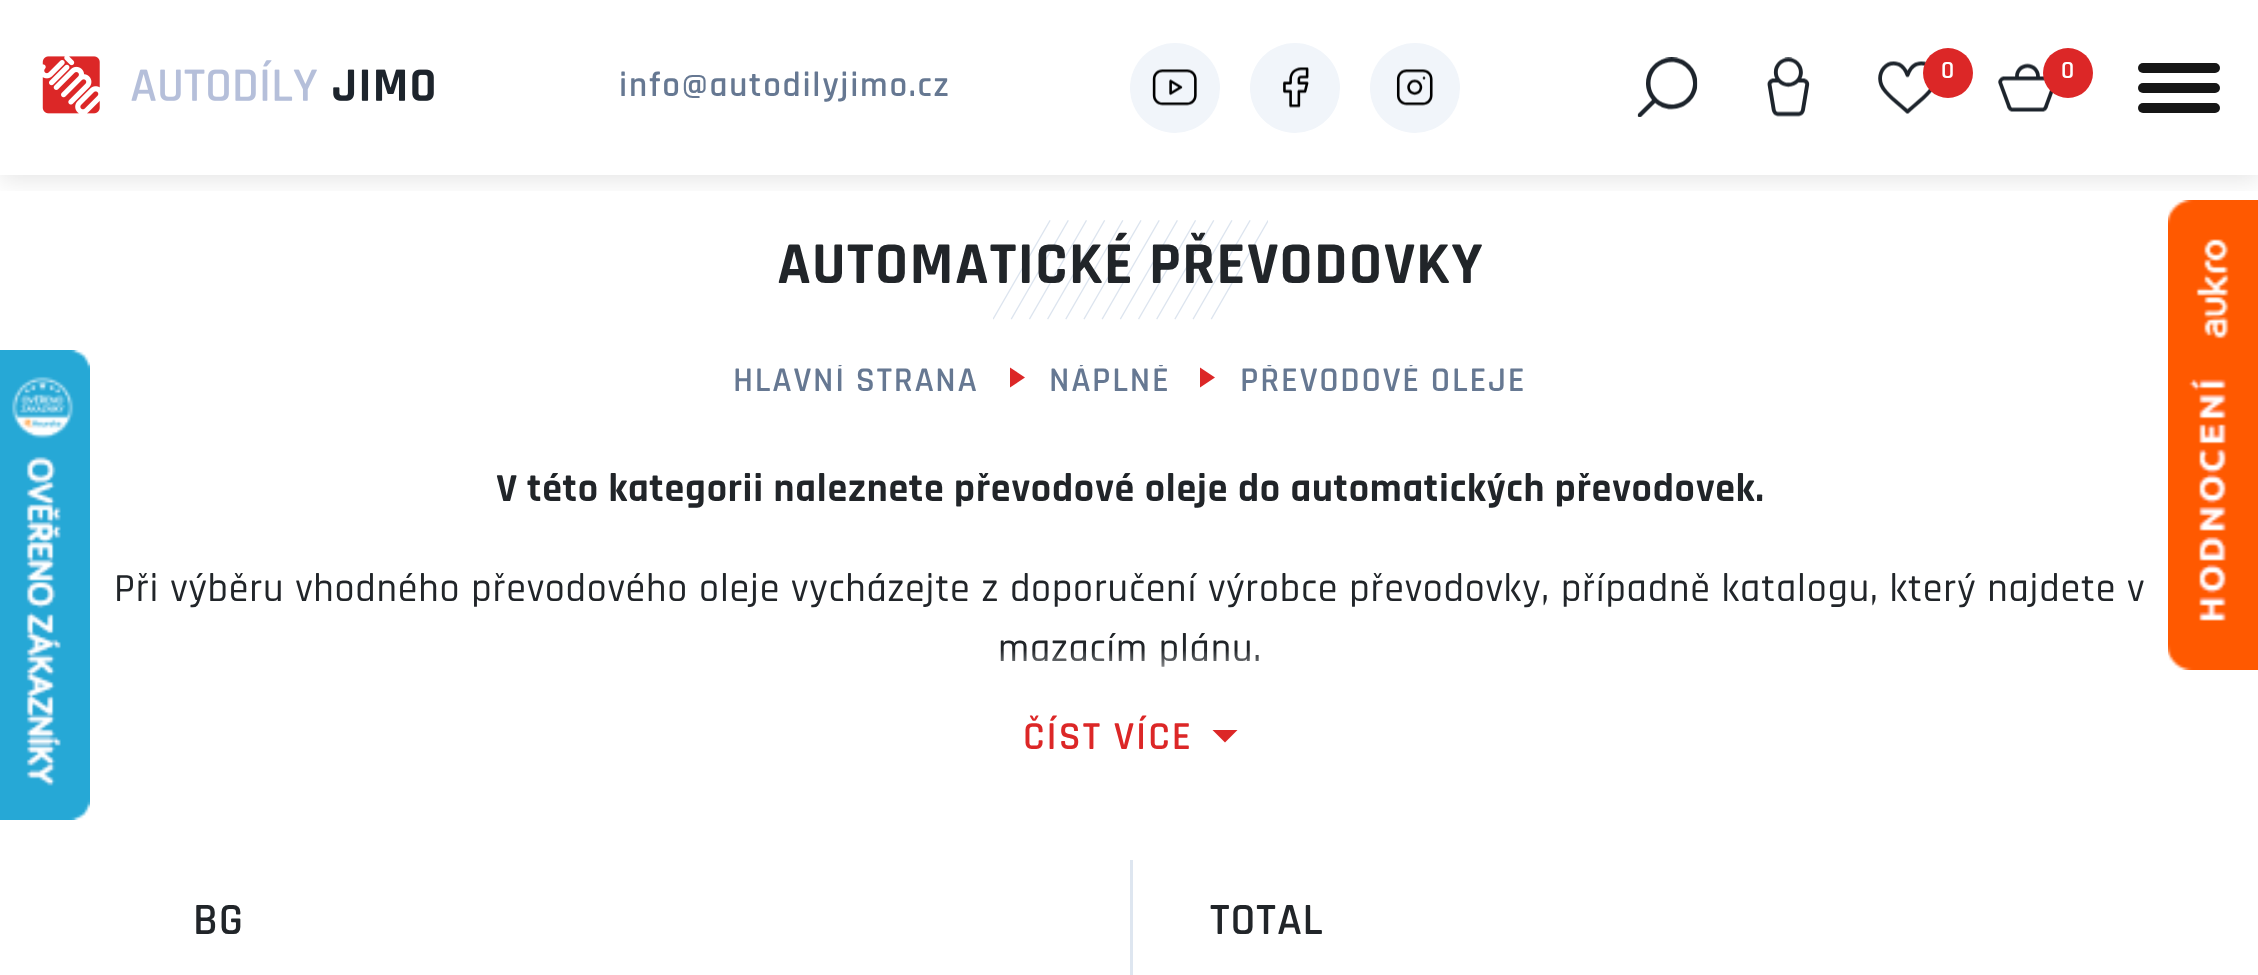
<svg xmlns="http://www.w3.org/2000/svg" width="2258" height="975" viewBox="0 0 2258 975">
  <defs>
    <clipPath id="clip1"><rect x="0" y="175" width="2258" height="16"/></clipPath>
    <filter id="blur1" x="-50%" y="-200%" width="200%" height="500%"><feGaussianBlur stdDeviation="12.5"/></filter>
    <clipPath id="clip2"><rect x="40" y="365" width="2180" height="58"/></clipPath>
    <linearGradient id="g1" gradientUnits="userSpaceOnUse" x1="1130" y1="700" x2="1130" y2="650"><stop offset="0.25" stop-color="#ffffff"/><stop offset="1" stop-color="#ffffff" stop-opacity="0"/></linearGradient>
  </defs>
  <rect width="100%" height="100%" fill="#ffffff"/>
  <g clip-path="url(#clip1)">
    <rect x="0" y="5" width="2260" height="175" fill="#000000" fill-opacity="0.1" filter="url(#blur1)"/>
  </g>
  <image x="42" y="56" width="392" height="58" href="img1.png"/>
  <text x="619" y="96" font-family="Rajdhani" font-size="35" font-weight="600" letter-spacing="1.75" fill="#667892">info@autodilyjimo.cz</text>
  <circle cx="1175" cy="88" r="45" fill="#f1f5fa"/>
  <image x="1152" y="69" width="45" height="37" href="img2.png"/>
  <circle cx="1295" cy="88" r="45" fill="#f1f5fa"/>
  <image x="1283" y="67" width="26" height="41" href="img3.png"/>
  <circle cx="1415" cy="88" r="45" fill="#f1f5fa"/>
  <image x="1396" y="69" width="37" height="37" href="img4.png"/>
  <image x="1637" y="57" width="61" height="60" href="img5.png"/>
  <image x="1767" y="57" width="43" height="60" href="img6.png"/>
  <image x="1878" y="61" width="54" height="53" href="img7.png"/>
  <circle cx="1948" cy="73" r="25" fill="#dc2727"/>
  <text x="1941" y="78" font-family="Rajdhani" font-size="25" font-weight="600" fill="#ffffff">0</text>
  <image x="1998" y="63" width="55" height="49" href="img8.png"/>
  <circle cx="2068" cy="73" r="25" fill="#dc2727"/>
  <text x="2061" y="78" font-family="Rajdhani" font-size="25" font-weight="600" fill="#ffffff">0</text>
  <rect x="2138" y="63" width="82" height="10" rx="5" fill="#161616"/>
  <rect x="2138" y="83" width="82" height="10" rx="5" fill="#161616"/>
  <rect x="2138" y="103" width="82" height="10" rx="5" fill="#161616"/>
  <image x="0" y="350" width="90" height="470" href="img9.png"/>
  <image x="993" y="220" width="275" height="100" href="img10.png"/>
  <text x="777" y="283" font-family="Rajdhani" font-size="60" font-weight="bold" letter-spacing="1.5" fill="#212529">AUTOMATICKÉ PŘEVODOVKY</text>
  <g clip-path="url(#clip2)">
    <text x="733" y="391" font-family="Rajdhani" font-size="35" font-weight="600" letter-spacing="1.75" fill="#667892">HLAVNÍ STRANA</text>
  </g>
  <path d="M1010 387.5V367.5L1025 377.5Z" fill="#dc2727"/>
  <g clip-path="url(#clip2)">
    <text x="1049" y="391" font-family="Rajdhani" font-size="35" font-weight="600" letter-spacing="1.75" fill="#667892">NÁPLNĚ</text>
  </g>
  <path d="M1200 387.5V367.5L1215 377.5Z" fill="#dc2727"/>
  <g clip-path="url(#clip2)">
    <text x="1240" y="391" font-family="Rajdhani" font-size="35" font-weight="600" letter-spacing="1.75" fill="#667892">PŘEVODOVÉ OLEJE</text>
  </g>
  <text x="496" y="501" font-family="Rajdhani" font-size="40" font-weight="bold" letter-spacing="0.8" fill="#212529">V této kategorii naleznete převodové oleje do automatických převodovek.</text>
  <text x="114" y="601" font-family="Rajdhani" font-size="40" font-weight="500" letter-spacing="0.8" fill="#212529">Při výběru vhodného převodového oleje vycházejte z doporučení výrobce převodovky, případně katalogu, který najdete v</text>
  <text x="998" y="661" font-family="Rajdhani" font-size="40" font-weight="500" letter-spacing="0.8" fill="#212529">mazacím plánu.</text>
  <rect x="1000" y="651" width="259" height="16" fill="url(#g1)"/>
  <text x="1023" y="749" font-family="Rajdhani" font-size="40" font-weight="600" letter-spacing="2" fill="#dc2727">ČÍST VÍCE</text>
  <path d="M1212.5 730H1237.5L1225 742.5Z" fill="#dc2727"/>
  <text x="193" y="934" font-family="Rajdhani" font-size="45" font-weight="600" letter-spacing="1" fill="#212529">BG</text>
  <rect x="1130" y="860" width="3" height="115" fill="#dee6f0"/>
  <text x="1210" y="934" font-family="Rajdhani" font-size="45" font-weight="600" letter-spacing="1" fill="#212529">TOTAL</text>
  <image x="2168" y="200" width="90" height="470" href="img11.png"/>
</svg>
